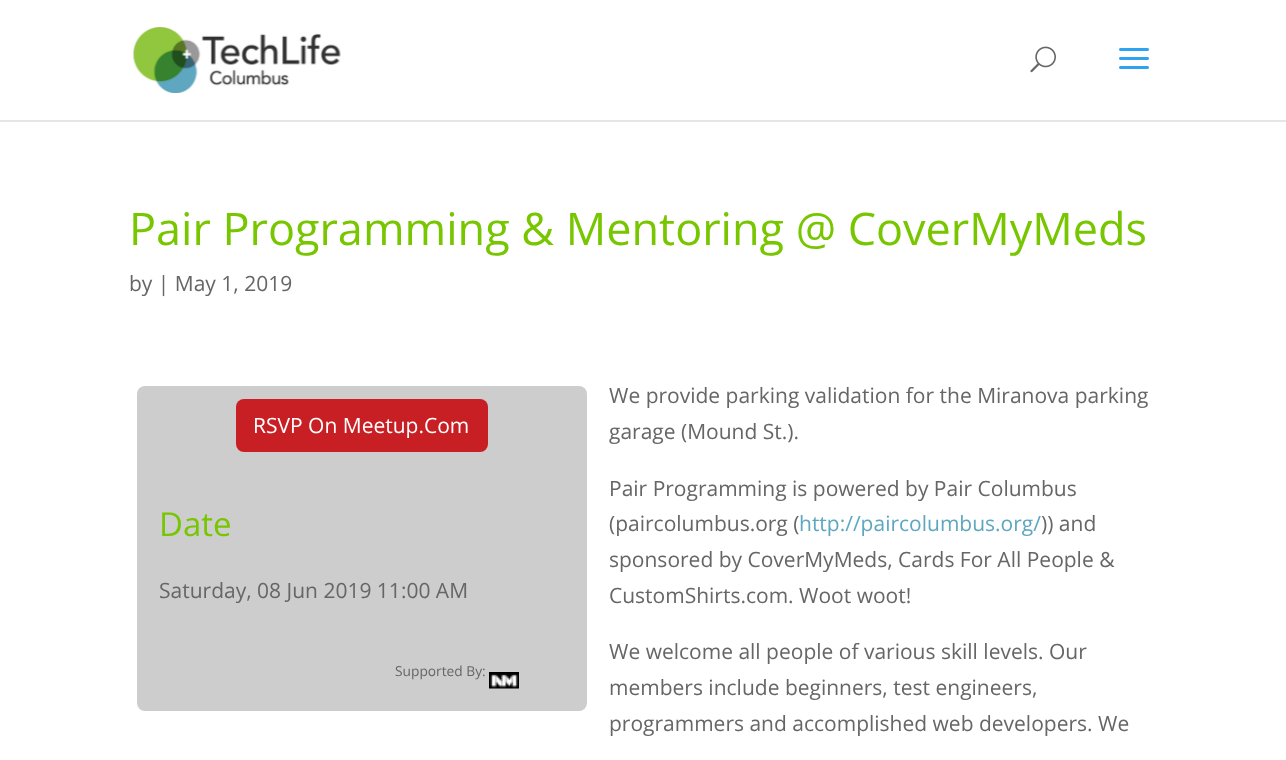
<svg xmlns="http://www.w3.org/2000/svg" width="1286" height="760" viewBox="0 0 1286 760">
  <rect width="100%" height="100%" fill="#ffffff"/>
  <rect x="0" y="120" width="1286" height="2" fill="#e6e6e6"/>
  <image x="133" y="27" width="208" height="66" href="img1.png"/>
  <image x="1030" y="46" width="26" height="27" href="img2.png"/>
  <image x="1119" y="48" width="30" height="21" href="img3.png"/>
  <text x="129" y="245" font-family="Open Sans" font-size="45" fill="#77c600">Pair Programming &amp; Mentoring @ CoverMyMeds</text>
  <text x="129" y="291" font-family="Open Sans" font-size="21" fill="#666666">by | May 1, 2019</text>
  <rect x="137" y="386" width="450" height="325" rx="8" fill="#cdcdcd"/>
  <rect x="236" y="399" width="252" height="53" rx="8" fill="#c71f24"/>
  <text x="253" y="433" font-family="Open Sans" font-size="21" fill="#ffffff">RSVP On Meetup.Com</text>
  <text x="159" y="536" font-family="Open Sans" font-size="33" fill="#77c600">Date</text>
  <text x="159" y="598" font-family="Open Sans" font-size="21" fill="#666666">Saturday, 08 Jun 2019 11:00 AM</text>
  <text x="395" y="676" font-family="Open Sans" font-size="13.75" fill="#666666">Supported By:</text>
  <image x="489" y="672" width="30" height="17" href="img4.png"/>
  <text x="609" y="403" font-family="Open Sans" font-size="21" fill="#666666">We provide parking validation for the Miranova parking</text>
  <text x="609" y="439" font-family="Open Sans" font-size="21" fill="#666666">garage (Mound St.).</text>
  <text x="609" y="496" font-family="Open Sans" font-size="21" fill="#666666">Pair Programming is powered by Pair Columbus</text>
  <text x="609" y="531" font-family="Open Sans" font-size="21" fill="#666666">(paircolumbus.org (</text>
  <text x="799" y="531" font-family="Open Sans" font-size="21" fill="#5fa7c0">http://paircolumbus.org/</text>
  <text x="1041" y="531" font-family="Open Sans" font-size="21" fill="#666666">)) and</text>
  <text x="609" y="567" font-family="Open Sans" font-size="21" fill="#666666">sponsored by CoverMyMeds, Cards For All People &amp;</text>
  <text x="609" y="603" font-family="Open Sans" font-size="21" fill="#666666">CustomShirts.com. Woot woot!</text>
  <text x="609" y="659" font-family="Open Sans" font-size="21" fill="#666666">We welcome all people of various skill levels. Our</text>
  <text x="609" y="695" font-family="Open Sans" font-size="21" fill="#666666">members include beginners, test engineers,</text>
  <text x="609" y="731" font-family="Open Sans" font-size="21" fill="#666666">programmers and accomplished web developers. We</text>
</svg>
